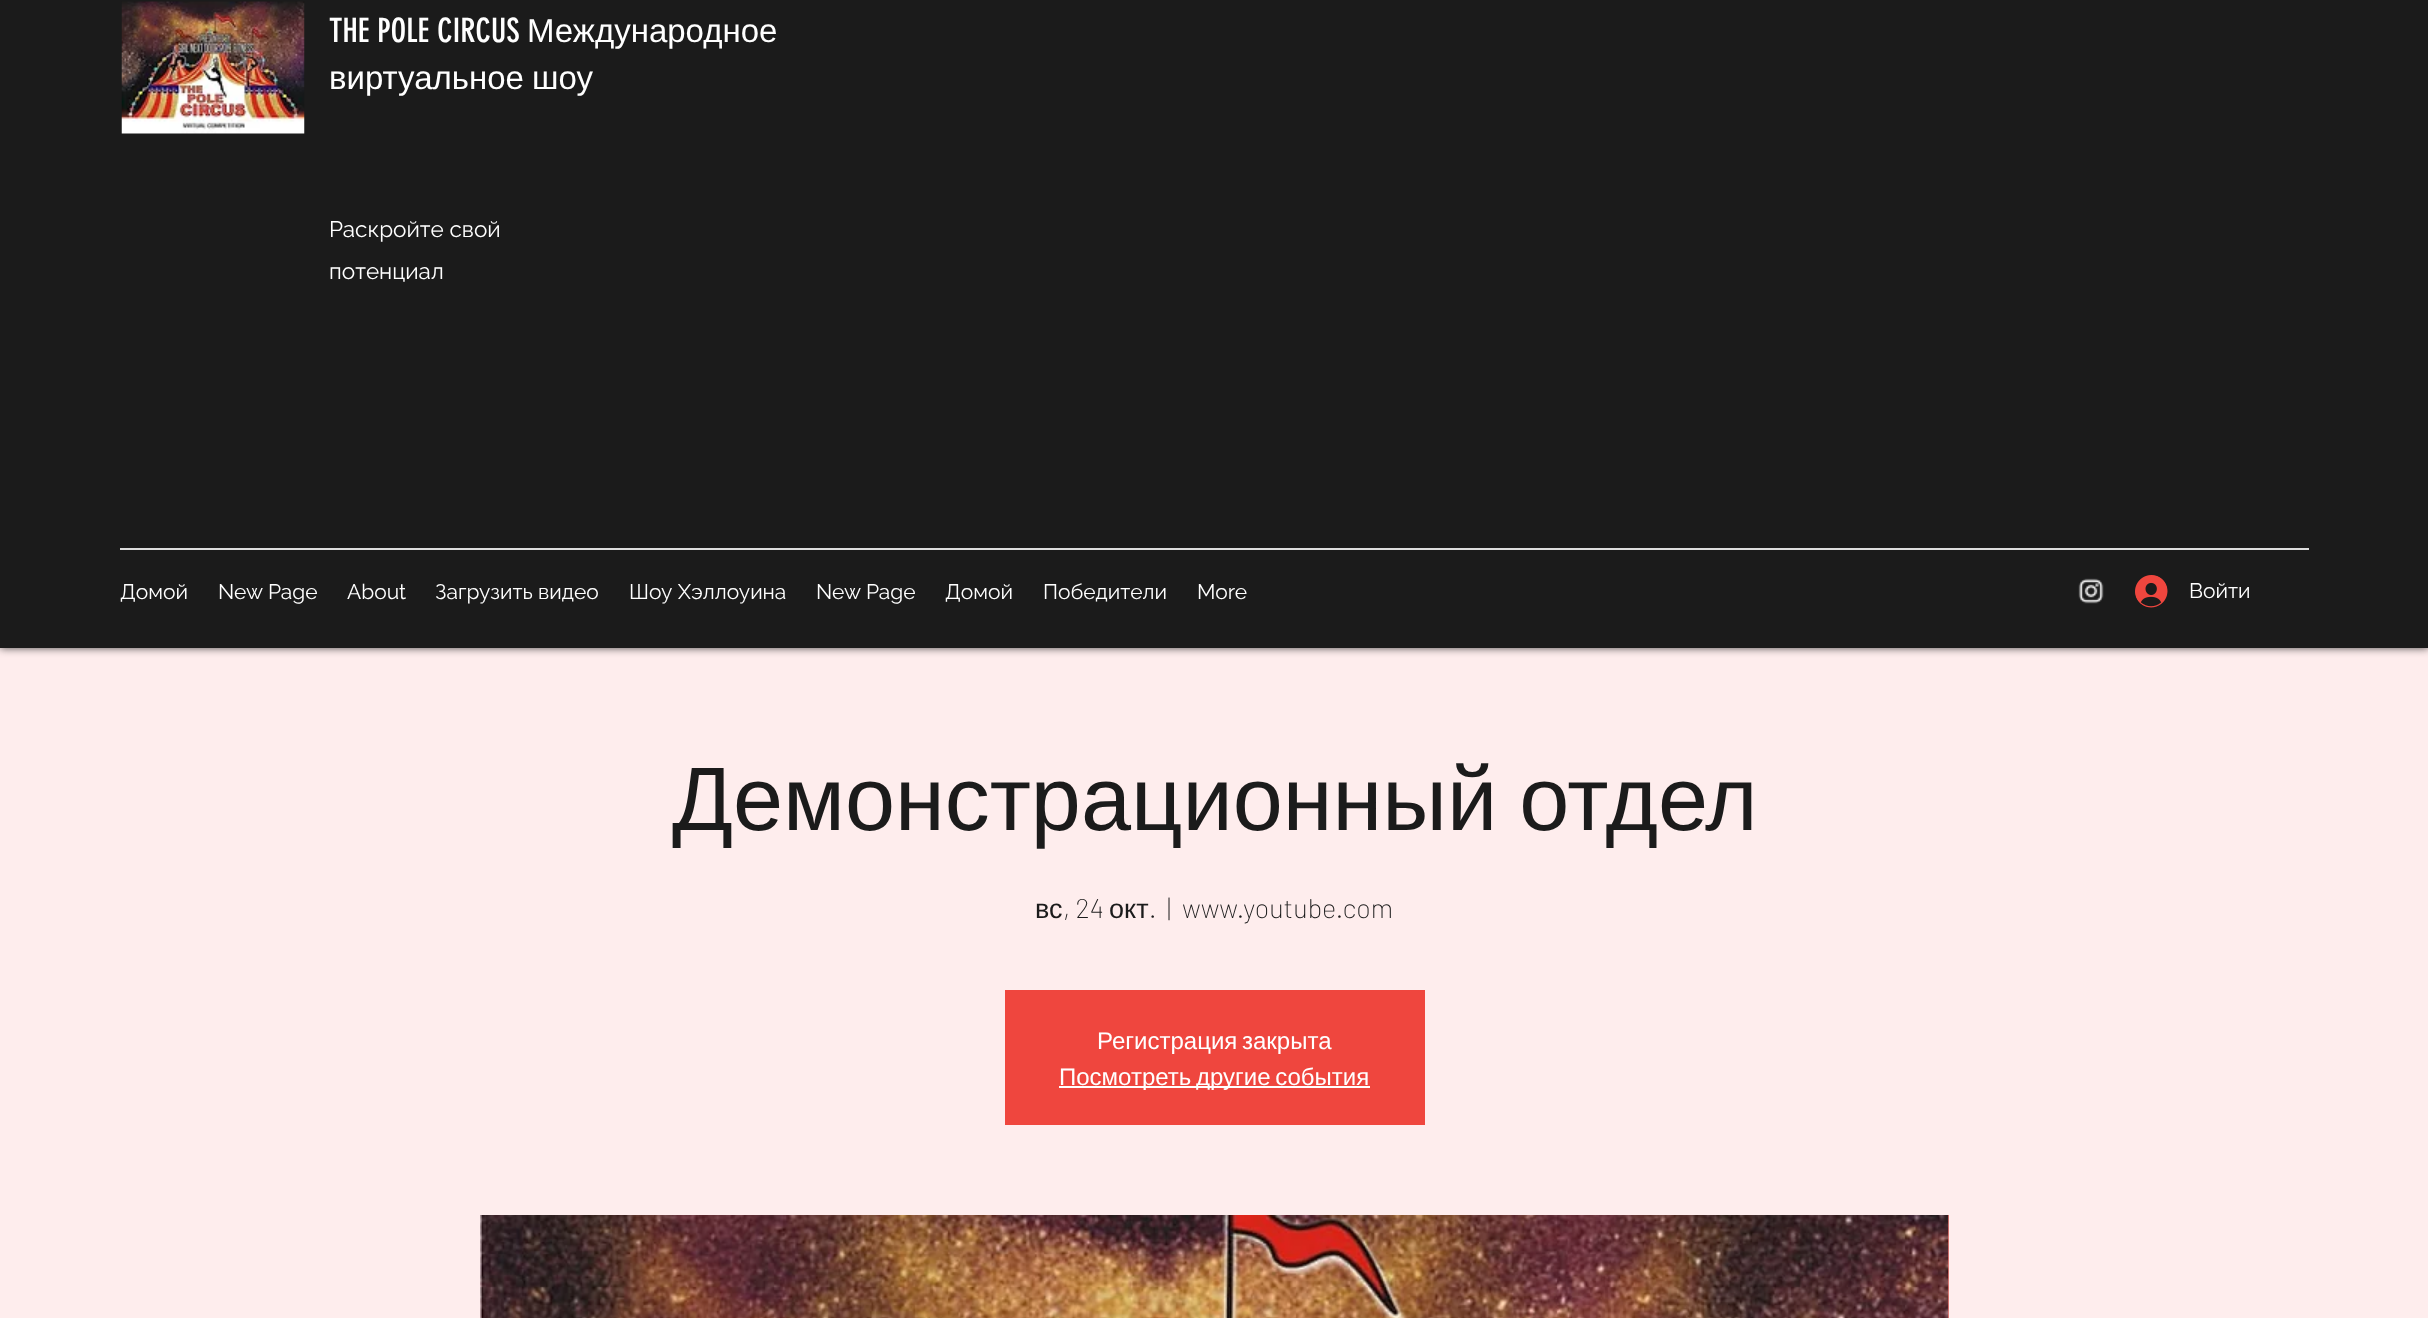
<svg xmlns="http://www.w3.org/2000/svg" width="2428" height="1318" viewBox="0 0 2428 1318">
  <defs>
    <filter id="blur1" x="-50%" y="-200%" width="200%" height="500%"><feGaussianBlur stdDeviation="4"/></filter>
  </defs>
  <rect width="100%" height="100%" fill="#feeded"/>
  <rect x="0" y="0" width="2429" height="648" fill="#000000" fill-opacity="0.7" filter="url(#blur1)"/>
  <rect x="0" y="0" width="2428" height="648" fill="#1b1b1b"/>
  <image x="121" y="1" width="184" height="133" href="img1.png"/>
  <text x="329" y="42" font-family="'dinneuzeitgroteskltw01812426'" font-size="33" fill="#ffffff">THE POLE CIRCUS</text>
  <text x="527" y="42" font-family="Liberation Sans" font-size="33" fill="#ffffff">Международное</text>
  <text x="329" y="89" word-spacing="-1" font-family="Liberation Sans" font-size="33" fill="#ffffff">виртуальное шоу</text>
  <text x="329" y="237" font-family="Raleway" font-size="22.5" fill="#ffffff">Раскройте свой</text>
  <text x="329" y="279" font-family="Raleway" font-size="22.5" fill="#ffffff">потенциал</text>
  <rect x="120" y="548" width="2189" height="2" fill="#dddddd"/>
  <text x="120" y="599" font-family="Raleway" font-size="21" fill="#ffffff">Домой</text>
  <text x="218" y="599" font-family="Raleway" font-size="21" fill="#ffffff">New Page</text>
  <text x="347" y="599" font-family="Raleway" font-size="21" fill="#ffffff">About</text>
  <text x="435" y="599" font-family="Raleway" font-size="21" fill="#ffffff">Загрузить видео</text>
  <text x="629" y="599" font-family="Raleway" font-size="21" fill="#ffffff">Шоу Хэллоуина</text>
  <text x="816" y="599" font-family="Raleway" font-size="21" fill="#ffffff">New Page</text>
  <text x="945" y="599" font-family="Raleway" font-size="21" fill="#ffffff">Домой</text>
  <text x="1043" y="599" font-family="Raleway" font-size="21" fill="#ffffff">Победители</text>
  <text x="1197" y="599" font-family="Raleway" font-size="21" fill="#ffffff">More</text>
  <image x="2078" y="578" width="26" height="26" href="img2.png"/>
  <image x="2135" y="575" width="33" height="33" href="img3.png"/>
  <text x="2189" y="598" font-family="Raleway" font-size="21" fill="#ffffff">Войти</text>
  <text x="672" y="830" word-spacing="-3" font-family="Liberation Sans" font-size="90" fill="#1b1b1b">Демонстрационный отдел</text>
  <text x="1035" y="918" font-family="Liberation Sans" font-size="27" fill="#1b1b1b">вс</text>
  <text x="1063" y="918" font-family="Barlow" font-size="27" font-weight="200" fill="#1b1b1b">, 24</text>
  <text x="1109" y="918" font-family="Liberation Sans" font-size="27" fill="#1b1b1b">окт</text>
  <text x="1149" y="918" font-family="Barlow" font-size="27" font-weight="200" fill="#1b1b1b">.</text>
  <text x="1167" y="918" font-family="Barlow" font-size="27" font-weight="200" fill="#1b1b1b">|</text>
  <text x="1182" y="918" font-family="Barlow" font-size="27" font-weight="200" fill="#1b1b1b">www.youtube.com</text>
  <rect x="1005" y="990" width="420" height="135" fill="#ef463e"/>
  <text x="1097" y="1049" word-spacing="-2" font-family="Liberation Sans" font-size="24" fill="#ffffff">Регистрация закрыта</text>
  <rect x="1059" y="1086" width="311" height="2" fill="#ffffff"/>
  <text x="1059" y="1085" word-spacing="-2" font-family="Liberation Sans" font-size="24" fill="#ffffff">Посмотреть другие события</text>
  <rect x="1948" y="1215" width="1" height="103" fill="#f4847e"/>
  <image x="480" y="1215" width="1469" height="103" href="img4.png"/>
</svg>
